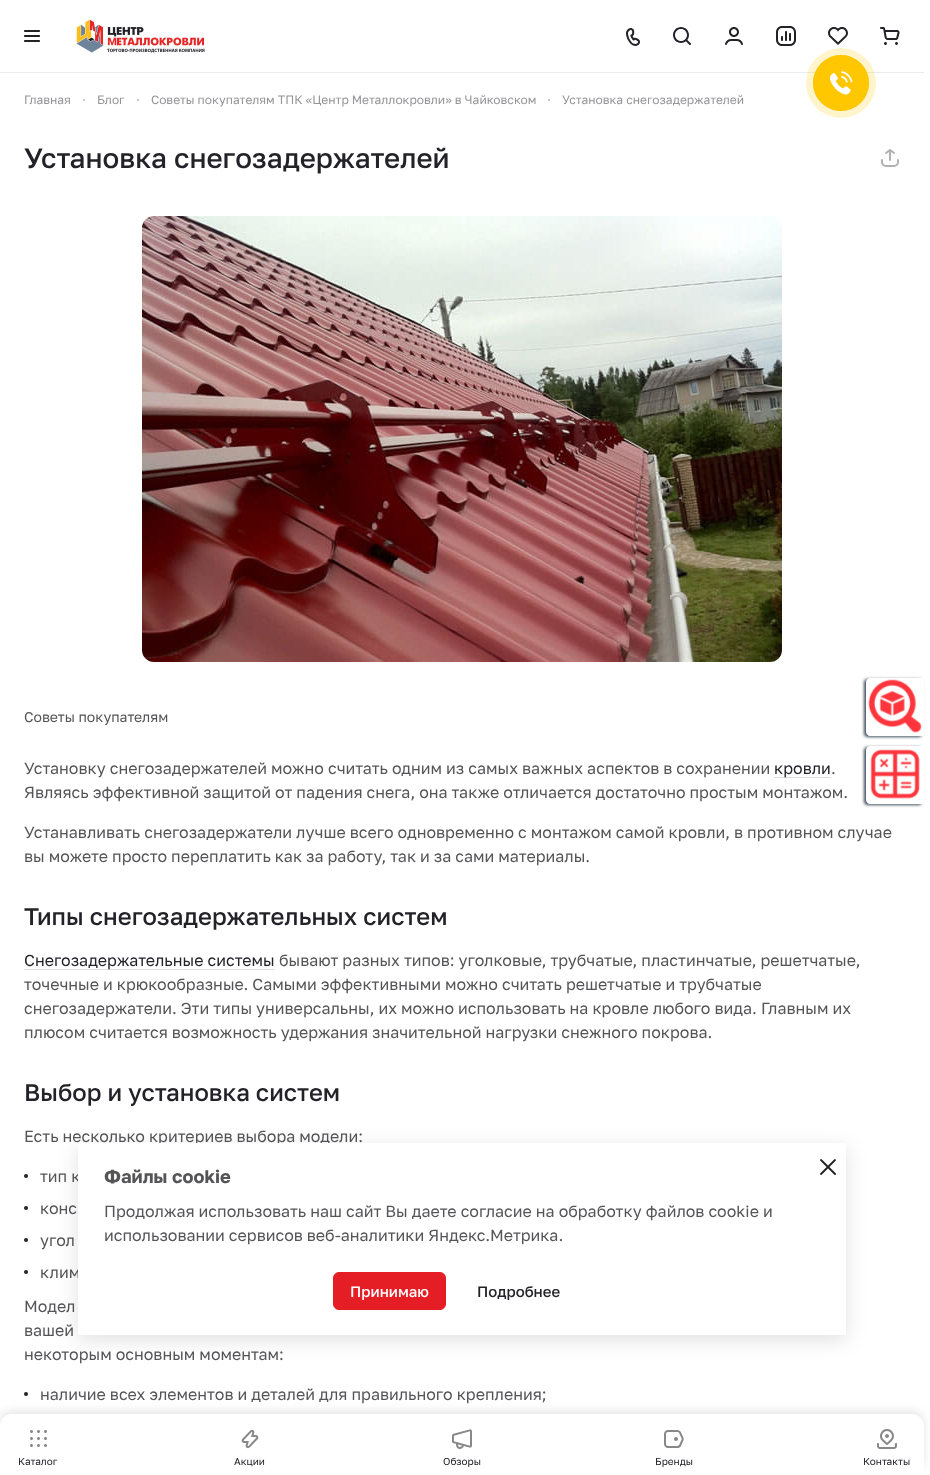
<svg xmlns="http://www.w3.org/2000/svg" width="930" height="1475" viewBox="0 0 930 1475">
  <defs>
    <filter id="blur1" x="-50%" y="-200%" width="200%" height="500%"><feGaussianBlur stdDeviation="1.5"/></filter>
    <filter id="blur2" x="-50%" y="-200%" width="200%" height="500%"><feGaussianBlur stdDeviation="5"/></filter>
    <filter id="blur3" x="-50%" y="-200%" width="200%" height="500%"><feGaussianBlur stdDeviation="10"/></filter>
  </defs>
  <rect width="100%" height="100%" fill="#ffffff"/>
  <rect x="0" y="72" width="924" height="1" fill="#ebecef"/>
  <circle cx="841" cy="83" r="35" fill="#ffc700" fill-opacity="0.2"/>
  <circle cx="841" cy="83" r="27.6" fill="none" stroke="#ffc700" stroke-width="0.8"/>
  <circle cx="841" cy="83" r="28" fill="#ffc700"/>
  <image x="829" y="71" width="24" height="24" href="img1.png"/>
  <image x="24" y="30" width="16" height="12" href="img2.png"/>
  <image x="76" y="19" width="129" height="34" href="img3.png"/>
  <image x="626" y="28" width="14" height="18" href="img4.png"/>
  <image x="673" y="27" width="18" height="18" href="img5.png"/>
  <image x="725" y="27" width="18" height="18" href="img6.png"/>
  <image x="776" y="26" width="20" height="20" href="img7.png"/>
  <image x="828" y="27" width="20" height="18" href="img8.png"/>
  <image x="880" y="27" width="20" height="18" href="img9.png"/>
  <text x="24" y="104" font-family="Golos Text" font-size="12" fill="#959598">Главная</text>
  <circle cx="84" cy="100" r="1" fill="#b8b8b9"/>
  <text x="97" y="104" font-family="Golos Text" font-size="12" fill="#959598">Блог</text>
  <circle cx="138" cy="100" r="1" fill="#b8b8b9"/>
  <text x="151" y="104" font-family="Golos Text" font-size="12" fill="#959598">Советы покупателям ТПК «Центр Металлокровли» в Чайковском</text>
  <circle cx="549" cy="100" r="1" fill="#b8b8b9"/>
  <text x="562" y="104" font-family="Golos Text" font-size="12" fill="#959598">Установка снегозадержателей</text>
  <text x="24" y="168" font-family="Golos Text" font-size="27.9" font-weight="500" fill="#222228">Установка снегозадержателей</text>
  <image x="881" y="149" width="18" height="18" href="img10.png"/>
  <image x="142" y="216" width="640" height="446" href="img11.png"/>
  <text x="24" y="722" font-family="Golos Text" font-size="14" fill="#555558">Советы покупателям</text>
  <text x="24" y="774" font-family="Golos Text" font-size="16" fill="#555558">Установку снегозадержателей можно считать одним из самых важных аспектов в сохранении</text>
  <rect x="774" y="777" width="57" height="1" fill="#dcdcdd"/>
  <text x="774" y="774" font-family="Golos Text" font-size="16" fill="#222228">кровли</text>
  <text x="831" y="774" font-family="Golos Text" font-size="16" fill="#555558">.</text>
  <text x="24" y="798" font-family="Golos Text" font-size="16" fill="#555558">Являясь эффективной защитой от падения снега, она также отличается достаточно простым монтажом.</text>
  <text x="24" y="838" font-family="Golos Text" font-size="16" fill="#555558">Устанавливать снегозадержатели лучше всего одновременно с монтажом самой кровли, в противном случае</text>
  <text x="24" y="862" font-family="Golos Text" font-size="16" fill="#555558">вы можете просто переплатить как за работу, так и за сами материалы.</text>
  <text x="24" y="925" font-family="Golos Text" font-size="24" font-weight="500" fill="#222228">Типы снегозадержательных систем</text>
  <rect x="24" y="969" width="251" height="1" fill="#dcdcdd"/>
  <text x="24" y="966" font-family="Golos Text" font-size="16" fill="#222228">Снегозадержательные системы</text>
  <text x="279" y="966" font-family="Golos Text" font-size="16" fill="#555558">бывают разных типов: уголковые, трубчатые, пластинчатые, решетчатые,</text>
  <text x="24" y="990" font-family="Golos Text" font-size="16" fill="#555558">точечные и крюкообразные. Самыми эффективными можно считать решетчатые и трубчатые</text>
  <text x="24" y="1014" font-family="Golos Text" font-size="16" fill="#555558">снегозадержатели. Эти типы универсальны, их можно использовать на кровле любого вида. Главным их</text>
  <text x="24" y="1038" font-family="Golos Text" font-size="16" fill="#555558">плюсом считается возможность удержания значительной нагрузки снежного покрова.</text>
  <text x="24" y="1101" font-family="Golos Text" font-size="24" font-weight="500" fill="#222228">Выбор и установка систем</text>
  <text x="24" y="1142" font-family="Golos Text" font-size="16" fill="#555558">Есть несколько критериев выбора модели:</text>
  <circle cx="26" cy="1176" r="2" fill="#222228"/>
  <text x="40" y="1182" font-family="Golos Text" font-size="16" fill="#555558">тип к</text>
  <circle cx="26" cy="1208" r="2" fill="#222228"/>
  <text x="40" y="1214" font-family="Golos Text" font-size="16" fill="#555558">конс</text>
  <circle cx="26" cy="1240" r="2" fill="#222228"/>
  <text x="40" y="1246" font-family="Golos Text" font-size="16" fill="#555558">угол</text>
  <circle cx="26" cy="1272" r="2" fill="#222228"/>
  <text x="40" y="1278" font-family="Golos Text" font-size="16" fill="#555558">клим</text>
  <text x="24" y="1312" font-family="Golos Text" font-size="16" fill="#555558">Модел</text>
  <text x="24" y="1336" font-family="Golos Text" font-size="16" fill="#555558">вашей</text>
  <text x="24" y="1360" font-family="Golos Text" font-size="16" fill="#555558">некоторым основным моментам:</text>
  <circle cx="26" cy="1394" r="2" fill="#222228"/>
  <text x="40" y="1400" font-family="Golos Text" font-size="16" fill="#555558">наличие всех элементов и деталей для правильного крепления;</text>
  <rect x="864" y="679" width="58" height="58" rx="4" fill="#424f60" filter="url(#blur1)"/>
  <path d="M870 678H924V736H870C868 736 866 734 866 732V682C866 680 868 678 870 678Z" fill="#ffffff"/>
  <image x="868" y="679" width="54" height="54" href="img12.png"/>
  <rect x="864" y="747" width="58" height="58" rx="4" fill="#424f60" filter="url(#blur1)"/>
  <path d="M870 746H924V804H870C868 804 866 802 866 800V750C866 748 868 746 870 746Z" fill="#ffffff"/>
  <image x="870" y="749" width="50" height="50" href="img13.png"/>
  <rect x="0" y="1411" width="924" height="61" rx="12" fill="#000000" fill-opacity="0.1" filter="url(#blur2)"/>
  <path d="M12 1414H912C918.5 1414 924 1419.5 924 1426V1475H0V1426C0 1419.5 5.5 1414 12 1414Z" fill="#ffffff"/>
  <image x="30" y="1430" width="17" height="17" href="img14.png"/>
  <text x="18" y="1465" font-family="Golos Text" font-size="10" fill="#222228">Каталог</text>
  <image x="241" y="1429" width="18" height="20" href="img15.png"/>
  <text x="234" y="1465" font-family="Golos Text" font-size="10" fill="#222228">Акции</text>
  <image x="452" y="1429" width="20" height="20" href="img16.png"/>
  <text x="443" y="1465" font-family="Golos Text" font-size="10" fill="#222228">Обзоры</text>
  <image x="664" y="1430" width="20" height="18" href="img17.png"/>
  <text x="655" y="1465" font-family="Golos Text" font-size="10" fill="#222228">Бренды</text>
  <image x="877" y="1429" width="20" height="20" href="img18.png"/>
  <text x="863" y="1465" font-family="Golos Text" font-size="10" fill="#222228">Контакты</text>
  <rect x="78" y="1148" width="768" height="192" fill="#000000" fill-opacity="0.12" filter="url(#blur3)"/>
  <rect x="78" y="1143" width="768" height="192" fill="#ffffff"/>
  <image x="820" y="1159" width="16" height="16" href="img19.png"/>
  <text x="104" y="1183" font-family="Golos Text" font-size="18.25" font-weight="bold" fill="#555558">Файлы cookie</text>
  <text x="104" y="1217" font-family="Golos Text" font-size="16" fill="#555558">Продолжая использовать наш сайт Вы даете согласие на обработку файлов cookie и</text>
  <text x="104" y="1241" font-family="Golos Text" font-size="16" fill="#555558">использовании сервисов веб-аналитики Яндекс.Метрика.</text>
  <rect x="333.5" y="1272.5" width="112" height="37" rx="5.5" fill="#e51d25" stroke="#e51d25"/>
  <text x="350" y="1297" font-family="Golos Text" font-size="15" font-weight="500" fill="#ffffff">Принимаю</text>
  <text x="477" y="1297" font-family="Golos Text" font-size="15" font-weight="500" fill="#222228">Подробнее</text>
</svg>
